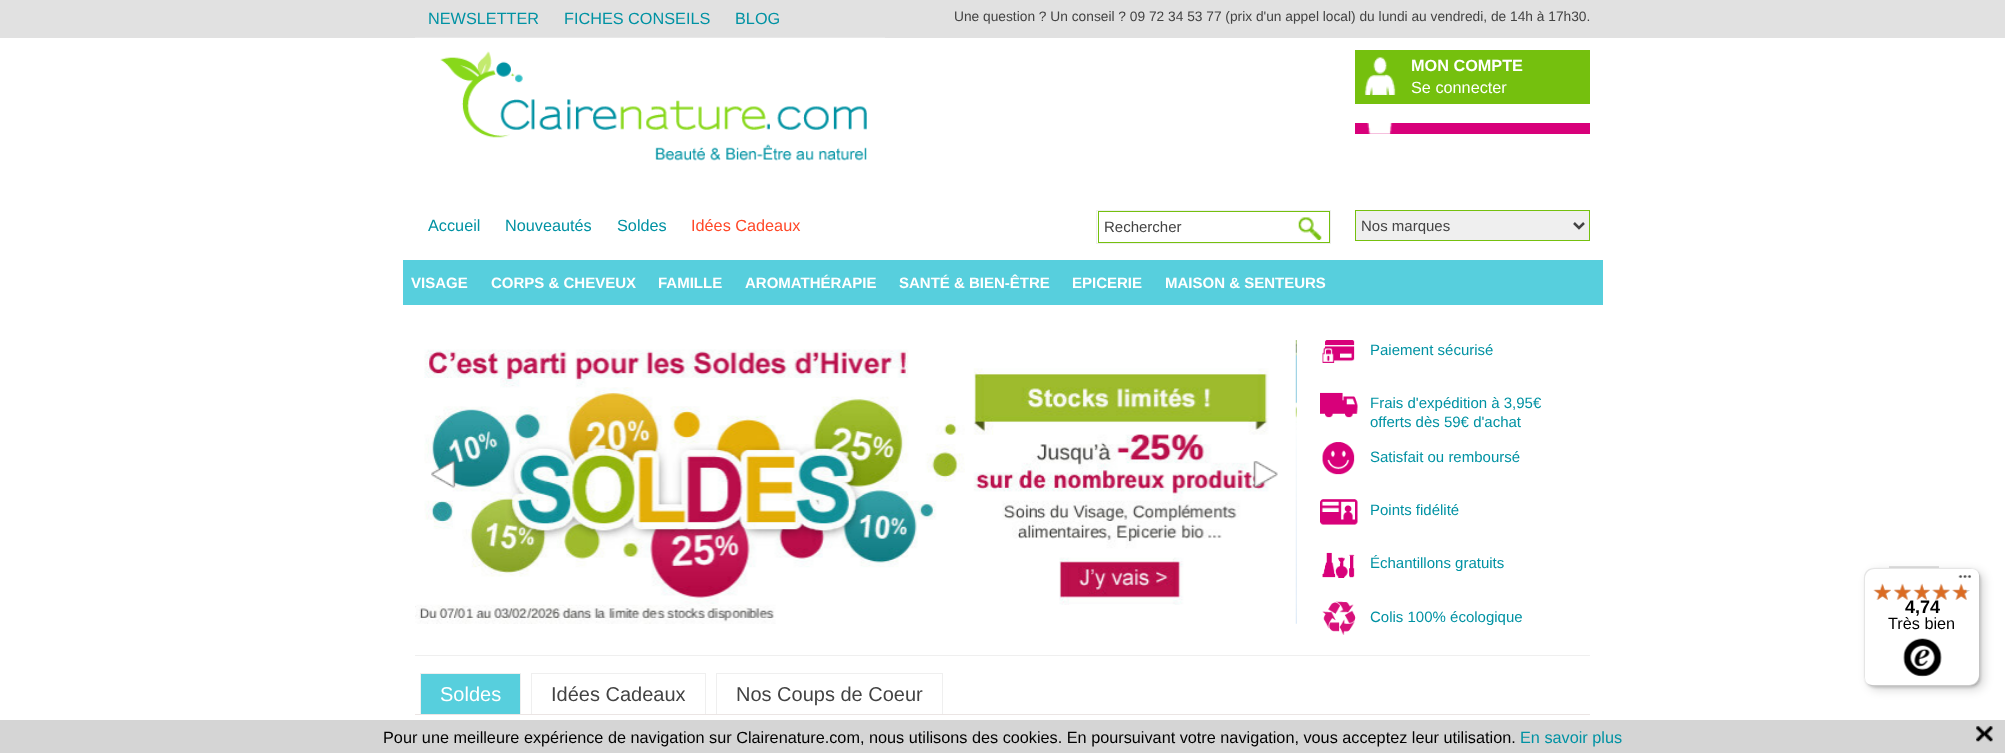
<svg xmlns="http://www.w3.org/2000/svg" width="2005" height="753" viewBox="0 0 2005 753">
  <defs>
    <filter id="blur1" x="-50%" y="-200%" width="200%" height="500%"><feGaussianBlur stdDeviation="5"/></filter>
    <filter id="blur2" x="-50%" y="-200%" width="200%" height="500%"><feGaussianBlur stdDeviation="1"/></filter>
  </defs>
  <rect width="100%" height="100%" fill="#ffffff"/>
  <rect x="0" y="0" width="2005" height="38" fill="#e1e1e1"/>
  <text x="428" y="24" font-family="Liberation Sans" font-size="16.25" fill="#0092a3">NEWSLETTER</text>
  <text x="564" y="24" font-family="Liberation Sans" font-size="16.25" fill="#0092a3">FICHES CONSEILS</text>
  <text x="735" y="24" font-family="Liberation Sans" font-size="16.25" fill="#0092a3">BLOG</text>
  <text x="954" y="21" font-family="Liberation Sans" font-size="13.75" fill="#434343">Une question ? Un conseil ? 09 72 34 53 77 (prix d'un appel local) du lundi au vendredi, de 14h à 17h30.</text>
  <image x="415" y="37" width="470" height="124" href="img1.png"/>
  <rect x="1355" y="50" width="235" height="54" fill="#75c00e"/>
  <image x="1364" y="57" width="32" height="38" href="img2.png"/>
  <text x="1411" y="71" font-family="Liberation Sans" font-size="16.25" font-weight="bold" fill="#ffffff">MON COMPTE</text>
  <text x="1411" y="93" font-family="Liberation Sans" font-size="16.25" fill="#ffffff">Se connecter</text>
  <rect x="1355" y="123" width="235" height="11" fill="#d8007a"/>
  <image x="1367" y="123" width="26" height="11" href="img3.png"/>
  <text x="428" y="231" font-family="Liberation Sans" font-size="16.25" fill="#0092a3">Accueil</text>
  <text x="505" y="231" font-family="Liberation Sans" font-size="16.25" fill="#0092a3">Nouveautés</text>
  <text x="617" y="231" font-family="Liberation Sans" font-size="16.25" fill="#0092a3">Soldes</text>
  <text x="691" y="231" font-family="Liberation Sans" font-size="16.25" fill="#ff4828">Idées Cadeaux</text>
  <rect x="1096.5" y="210.5" width="234" height="33" fill="none" stroke="#efefef"/>
  <rect x="1098.5" y="211.5" width="231" height="31" fill="none" stroke="#75c00e"/>
  <text x="1104" y="232" font-family="Liberation Sans" font-size="15" fill="#434343">Rechercher</text>
  <image x="1298" y="217" width="24" height="23" href="img4.png"/>
  <rect x="1355.5" y="210.5" width="234" height="30" fill="#efefef" stroke="#75c00e"/>
  <path d="M1574 223L1579 228L1584 223" fill="none" stroke="#434343" stroke-width="2.5"/>
  <text x="1361" y="231" font-family="Liberation Sans" font-size="15" fill="#434343">Nos marques</text>
  <rect x="403" y="260" width="1200" height="45" fill="#57cfdd"/>
  <text x="411" y="288" font-family="Liberation Sans" font-size="15" font-weight="bold" fill="#ffffff">VISAGE</text>
  <text x="491" y="288" font-family="Liberation Sans" font-size="15" font-weight="bold" fill="#ffffff">CORPS &amp; CHEVEUX</text>
  <text x="658" y="288" font-family="Liberation Sans" font-size="15" font-weight="bold" fill="#ffffff">FAMILLE</text>
  <text x="745" y="288" font-family="Liberation Sans" font-size="15" font-weight="bold" fill="#ffffff">AROMATHÉRAPIE</text>
  <text x="899" y="288" font-family="Liberation Sans" font-size="15" font-weight="bold" fill="#ffffff">SANTÉ &amp; BIEN-ÊTRE</text>
  <text x="1072" y="288" font-family="Liberation Sans" font-size="15" font-weight="bold" fill="#ffffff">EPICERIE</text>
  <text x="1165" y="288" font-family="Liberation Sans" font-size="15" font-weight="bold" fill="#ffffff">MAISON &amp; SENTEURS</text>
  <image x="415" y="340" width="854" height="284" href="img5.png"/>
  <image x="1295" y="340" width="2" height="284" href="img6.png"/>
  <image x="431" y="461" width="25" height="27" href="img7.png"/>
  <image x="1253" y="461" width="25" height="27" href="img8.png"/>
  <image x="1322" y="340" width="33" height="23" href="img9.png"/>
  <text x="1370" y="355" font-family="Liberation Sans" font-size="15" fill="#0092a3">Paiement sécurisé</text>
  <image x="1320" y="392" width="38" height="26" href="img10.png"/>
  <text x="1370" y="408" font-family="Liberation Sans" font-size="15" fill="#0092a3">Frais d'expédition à 3,95€</text>
  <text x="1370" y="427" font-family="Liberation Sans" font-size="15" fill="#0092a3">offerts dès 59€ d'achat</text>
  <image x="1322" y="442" width="33" height="33" href="img11.png"/>
  <text x="1370" y="462" font-family="Liberation Sans" font-size="15" fill="#0092a3">Satisfait ou remboursé</text>
  <image x="1320" y="499" width="38" height="26" href="img12.png"/>
  <text x="1370" y="515" font-family="Liberation Sans" font-size="15" fill="#0092a3">Points fidélité</text>
  <image x="1322" y="552" width="33" height="26" href="img13.png"/>
  <text x="1370" y="568" font-family="Liberation Sans" font-size="15" fill="#0092a3">Échantillons gratuits</text>
  <image x="1322" y="601" width="34" height="34" href="img14.png"/>
  <text x="1370" y="622" font-family="Liberation Sans" font-size="15" fill="#0092a3">Colis 100% écologique</text>
  <rect x="415" y="655" width="1175" height="1" fill="#efefef"/>
  <rect x="421" y="674" width="99" height="40" fill="#57cfdd"/>
  <rect x="420.5" y="673.5" width="100" height="42" fill="none" stroke="#efefef"/>
  <text x="440" y="701" font-family="Liberation Sans" font-size="20" fill="#ffffff">Soldes</text>
  <rect x="531.5" y="673.5" width="174" height="42" fill="none" stroke="#efefef"/>
  <text x="551" y="701" font-family="Liberation Sans" font-size="20" fill="#434343">Idées Cadeaux</text>
  <rect x="716.5" y="673.5" width="226" height="42" fill="none" stroke="#efefef"/>
  <text x="736" y="701" font-family="Liberation Sans" font-size="20" fill="#434343">Nos Coups de Coeur</text>
  <rect x="415" y="715" width="528" height="1" fill="#ffffff"/>
  <rect x="415" y="714" width="1175" height="1" fill="#ebe5e4"/>
  <rect x="1889" y="566" width="50" height="2" fill="#e1e1e1"/>
  <rect x="1868" y="571" width="116" height="119" rx="10" fill="#000000" fill-opacity="0.15" filter="url(#blur1)"/>
  <rect x="1865" y="569" width="116" height="119" rx="10" fill="#000000" fill-opacity="0.15" filter="url(#blur2)"/>
  <rect x="1864" y="568" width="116" height="118" rx="10" fill="#ffffff"/>
  <path d="M1875 569H1971C1973 569 1975 569 1976 570C1975 569 1972 568 1970 568H1874C1868 568 1864 572 1864 578V676C1864 678 1865 680 1866 682L1865 678V579C1865 573 1869 569 1875 569Z" fill="#e5e5e5"/>
  <path d="M1868 684C1870 685 1872 686 1874 686H1970C1976 686 1980 682 1980 676V578C1980 576 1979 574 1978 572C1979 573 1979 575 1979 576V675C1979 681 1974 685 1969 685H1872Z" fill="#000000" fill-opacity="0.2"/>
  <path d="M1969 686H1970C1976 686 1980 682 1980 676V578C1980 576 1979 573 1978 572C1979 573 1979 575 1979 577V676C1979 681 1975 686 1969 686Z" fill="#323232" fill-opacity="0.2"/>
  <path d="M1969 686H1970C1976 686 1980 682 1980 676V578C1980 576 1979 573 1978 572C1979 573 1979 575 1979 577V676C1979 681 1975 686 1969 686Z" fill="#ffffff" fill-opacity="0.3"/>
  <image x="1958" y="575" width="14" height="3" href="img15.png"/>
  <image x="1873" y="584" width="18" height="16" href="img21.png"/>
  <image x="1873" y="583" width="18" height="17" href="img16.png"/>
  <image x="1894" y="584" width="17" height="16" href="img22.png"/>
  <image x="1893" y="583" width="19" height="17" href="img17.png"/>
  <image x="1913" y="584" width="17" height="16" href="img23.png"/>
  <image x="1913" y="583" width="17" height="17" href="img18.png"/>
  <image x="1932" y="584" width="18" height="16" href="img24.png"/>
  <image x="1932" y="583" width="18" height="17" href="img19.png"/>
  <image x="1952" y="584" width="18" height="16" href="img25.png"/>
  <image x="1952" y="583" width="15" height="17" href="img20.png"/>
  <text x="1905" y="613" font-family="Liberation Sans" font-size="18" font-weight="bold" fill="#000000">4,74</text>
  <text x="1888" y="629" font-family="Liberation Sans" font-size="16.25" fill="#000000">Très bien</text>
  <image x="1903" y="638" width="39" height="39" href="img26.png"/>
  <rect x="0" y="720" width="2005" height="33" fill="#d5d5d5"/>
  <text x="383" y="743" font-family="Liberation Sans" font-size="16.25" fill="#000000">Pour une meilleure expérience de navigation sur Clairenature.com, nous utilisons des cookies. En poursuivant votre navigation, vous acceptez leur utilisation.</text>
  <text x="1520" y="743" font-family="Liberation Sans" font-size="16.25" fill="#0092a3">En savoir plus</text>
  <image x="1976" y="726" width="17" height="16" href="img27.png"/>
</svg>
